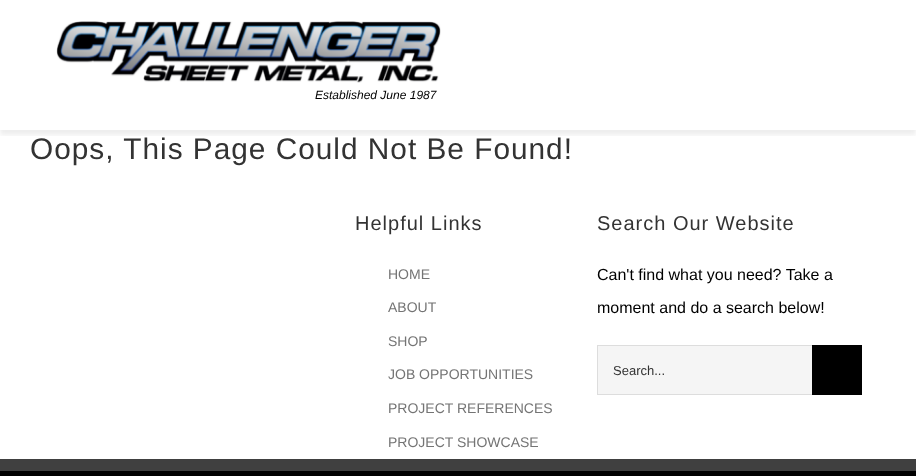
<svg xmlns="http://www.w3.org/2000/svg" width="916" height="476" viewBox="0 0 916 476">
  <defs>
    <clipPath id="clip1"><rect x="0" y="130" width="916" height="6"/></clipPath>
    <filter id="blur1" x="-50%" y="-200%" width="200%" height="500%"><feGaussianBlur stdDeviation="2.5"/></filter>
  </defs>
  <rect width="100%" height="100%" fill="#ffffff"/>
  <g clip-path="url(#clip1)">
    <rect x="0" y="5" width="916" height="130" fill="#000000" fill-opacity="0.07" filter="url(#blur1)"/>
  </g>
  <image x="56" y="21" width="385" height="62" href="img1.png"/>
  <text x="315" y="99" font-family="Liberation Sans" font-size="12" font-style="italic" fill="#000000">Established June 1987</text>
  <text x="30" y="159" font-family="Liberation Sans" font-size="29.8" letter-spacing="1" fill="#333333">Oops, This Page Could Not Be Found!</text>
  <text x="355" y="230" font-family="Liberation Sans" font-size="20" letter-spacing="1" fill="#333333">Helpful Links</text>
  <text x="388" y="279" font-family="Liberation Sans" font-size="14" fill="#747474">HOME</text>
  <text x="388" y="312" font-family="Liberation Sans" font-size="14" fill="#747474">ABOUT</text>
  <text x="388" y="346" font-family="Liberation Sans" font-size="14" fill="#747474">SHOP</text>
  <text x="388" y="379" font-family="Liberation Sans" font-size="14" fill="#747474">JOB OPPORTUNITIES</text>
  <text x="388" y="413" font-family="Liberation Sans" font-size="14" fill="#747474">PROJECT REFERENCES</text>
  <text x="388" y="447" font-family="Liberation Sans" font-size="14" fill="#747474">PROJECT SHOWCASE</text>
  <text x="597" y="230" font-family="Liberation Sans" font-size="20" letter-spacing="1" fill="#333333">Search Our Website</text>
  <text x="597" y="280" font-family="Liberation Sans" font-size="16" fill="#000000">Can't find what you need? Take a</text>
  <text x="597" y="313" font-family="Liberation Sans" font-size="16" fill="#000000">moment and do a search below!</text>
  <rect x="598" y="346" width="214" height="48" fill="#f5f5f5"/>
  <rect x="597" y="345" width="215" height="1" fill="#dddddd"/>
  <rect x="597" y="394" width="215" height="1" fill="#dddddd"/>
  <rect x="597" y="345" width="1" height="50" fill="#dddddd"/>
  <text x="613" y="375" font-family="Liberation Sans" font-size="13" fill="#333333">Search...</text>
  <rect x="812" y="345" width="50" height="50" fill="#000000"/>
  <rect x="0" y="471" width="916" height="5" fill="#000000"/>
  <rect x="0" y="459" width="916" height="12" fill="#404040"/>
</svg>
